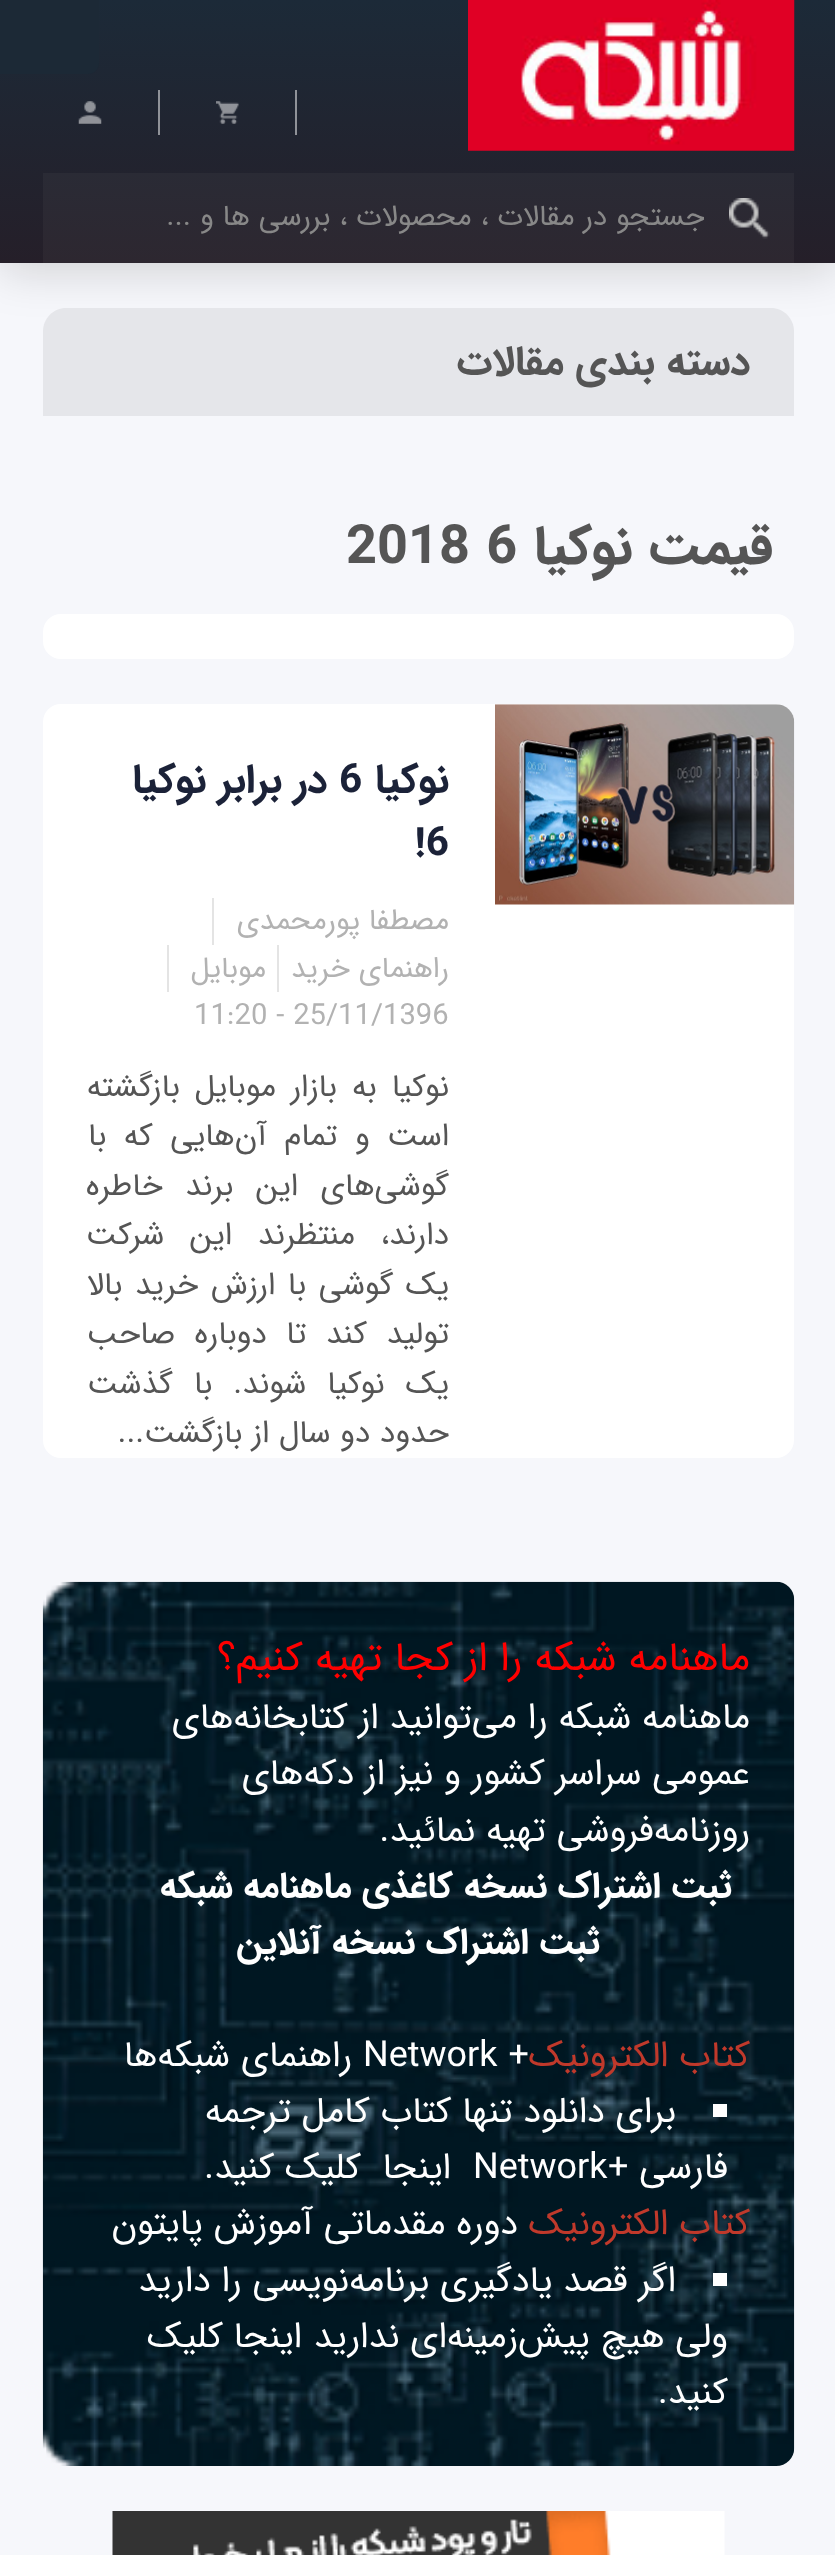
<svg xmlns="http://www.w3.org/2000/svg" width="835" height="2555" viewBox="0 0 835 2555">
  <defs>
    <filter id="blur1" x="-50%" y="-200%" width="200%" height="500%"><feGaussianBlur stdDeviation="22.5"/></filter>
    <linearGradient id="g1" gradientUnits="userSpaceOnUse" x1="419" y1="0" x2="419" y2="263"><stop offset="0" stop-color="#1c2a38"/><stop offset="1" stop-color="#251f29"/></linearGradient>
    <linearGradient id="g2" gradientUnits="userSpaceOnUse" x1="419" y1="0" x2="419" y2="263"><stop offset="0" stop-color="#8e959c"/><stop offset="1" stop-color="#928f94"/></linearGradient>
    <clipPath id="clip1"><rect x="65" y="194" width="639" height="47"/></clipPath>
  </defs>
  <rect width="100%" height="100%" fill="#f6f7fb"/>
  <rect x="0" y="9" width="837" height="263" fill="#000000" fill-opacity="0.15" filter="url(#blur1)"/>
  <rect x="0" y="0" width="835" height="263" fill="url(#g1)"/>
  <path d="M0 0H99V63C99 69 94 74 88 74H0Z" fill="#1c2936"/>
  <rect x="158" y="90" width="2" height="45" fill="url(#g2)"/>
  <rect x="295" y="90" width="2" height="45" fill="url(#g2)"/>
  <image x="468" y="0" width="327" height="151" href="img1.png"/>
  <image x="216" y="101" width="23" height="23" href="img2.png"/>
  <image x="78" y="101" width="24" height="23" href="img3.png"/>
  <rect x="43" y="173" width="751" height="90" fill="#c4c4c4" fill-opacity="0.05"/>
  <image x="729" y="198" width="41" height="41" href="img4.png"/>
  <g clip-path="url(#clip1)">
    <text x="705" y="225" font-family="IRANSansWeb" font-size="29.25" direction="rtl" fill="#888888">جستجو در مقالات ، محصولات ، بررسی ها و ...</text>
  </g>
  <path d="M66 308H771C783.5 308 794 318.5 794 331V416H43V331C43 318.5 53.5 308 66 308Z" fill="#e5e6ea"/>
  <text x="750" y="374" font-family="IRANSansWeb" font-size="40.5" font-weight="bold" direction="rtl" fill="#555555">دسته بندی مقالات</text>
  <text x="773" y="563" font-family="IRANSansWeb" font-size="54" font-weight="bold" direction="rtl" fill="#555555">قیمت نوکیا</text>
  <text x="346" y="563" font-family="IRANSansWeb" font-size="54" font-weight="bold" fill="#555555">2018 6</text>
  <rect x="43" y="614" width="751" height="45" rx="18" fill="#ffffff"/>
  <rect x="43" y="704" width="751" height="754" rx="18" fill="#ffffff"/>
  <image x="495" y="704" width="300" height="201" href="img5.png"/>
  <text x="449" y="792" font-family="IRANSansWeb" font-size="40.5" font-weight="bold" direction="rtl" fill="#1b2238">نوکیا</text>
  <text x="339" y="792" font-family="IRANSansWeb" font-size="40.5" font-weight="bold" fill="#1b2238">6</text>
  <text x="327" y="792" font-family="IRANSansWeb" font-size="40.5" font-weight="bold" direction="rtl" fill="#1b2238">در برابر نوکیا</text>
  <text x="415" y="855" font-family="IRANSansWeb" font-size="40.5" font-weight="bold" fill="#1b2238">!6</text>
  <rect x="212" y="898" width="2" height="47" fill="#e4e4e4"/>
  <text x="449" y="929" font-family="IRANSansWeb" font-size="29.25" direction="rtl" fill="#b2b2b2">مصطفا پورمحمدی</text>
  <rect x="167" y="945" width="2" height="47" fill="#e4e4e4"/>
  <rect x="277" y="945" width="2" height="47" fill="#e4e4e4"/>
  <text x="449" y="977" font-family="IRANSansWeb" font-size="29.25" direction="rtl" fill="#b2b2b2">راهنمای خرید</text>
  <text x="266" y="977" font-family="IRANSansWeb" font-size="29.25" direction="rtl" fill="#b2b2b2">موبایل</text>
  <text x="194" y="1024" font-family="IRANSansWeb" font-size="29.25" fill="#b2b2b2">11:20 - 25/11/1396</text>
  <text x="449" y="1096" word-spacing="5.5" font-family="IRANSansWeb" font-size="31.5" direction="rtl" fill="#555555">نوکیا به بازار موبایل بازگشته</text>
  <text x="449" y="1145" word-spacing="8" font-family="IRANSansWeb" font-size="31.5" direction="rtl" fill="#555555">است و تمام آن‌هایی که با</text>
  <text x="449" y="1195" word-spacing="13" font-family="IRANSansWeb" font-size="31.5" direction="rtl" fill="#555555">گوشی‌های این برند خاطره</text>
  <text x="449" y="1244" word-spacing="16" font-family="IRANSansWeb" font-size="31.5" direction="rtl" fill="#555555">دارند، منتظرند این شرکت</text>
  <text x="449" y="1294" word-spacing="3" font-family="IRANSansWeb" font-size="31.5" direction="rtl" fill="#555555">یک گوشی با ارزش خرید بالا</text>
  <text x="449" y="1343" word-spacing="10" font-family="IRANSansWeb" font-size="31.5" direction="rtl" fill="#555555">تولید کند تا دوباره صاحب</text>
  <text x="449" y="1393" word-spacing="11.5" font-family="IRANSansWeb" font-size="31.5" direction="rtl" fill="#555555">یک نوکیا شوند. با گذشت</text>
  <text x="449" y="1442" font-family="IRANSansWeb" font-size="31.5" direction="rtl" fill="#555555">حدود دو سال از بازگشت...</text>
  <image x="42" y="1581" width="753" height="885" href="img6.png"/>
  <text x="750" y="1670" font-family="IRANSansWeb" font-size="40.5" direction="rtl" fill="#ff0000">ماهنامه شبکه را از کجا تهیه کنیم؟</text>
  <text x="750" y="1728" font-family="IRANSansWeb" font-size="36" direction="rtl" fill="#ffffff">ماهنامه شبکه را می‌توانید از کتابخانه‌های</text>
  <text x="750" y="1784" font-family="IRANSansWeb" font-size="36" direction="rtl" fill="#ffffff">عمومی سراسر کشور و نیز از دکه‌های</text>
  <text x="750" y="1841" font-family="IRANSansWeb" font-size="36" direction="rtl" fill="#ffffff">روزنامه‌فروشی تهیه نمائید.</text>
  <text x="732" y="1897" font-family="IRANSansWeb" font-size="36" font-weight="bold" direction="rtl" fill="#ffffff">ثبت اشتراک نسخه کاغذی ماهنامه شبکه</text>
  <text x="600" y="1953" font-family="IRANSansWeb" font-size="36" font-weight="bold" direction="rtl" fill="#ffffff">ثبت اشتراک نسخه آنلاین</text>
  <text x="750" y="2066" font-family="IRANSansWeb" font-size="36" direction="rtl" fill="#c0392b">کتاب الکترونیک</text>
  <text x="363" y="2066" font-family="IRANSansWeb" font-size="36" fill="#ffffff">Network +</text>
  <text x="352" y="2066" font-family="IRANSansWeb" font-size="36" direction="rtl" fill="#ffffff">راهنمای شبکه‌ها</text>
  <rect x="713" y="2104" width="14" height="13" fill="#ffffff"/>
  <text x="676" y="2122" font-family="IRANSansWeb" font-size="36" direction="rtl" fill="#ffffff">برای دانلود تنها کتاب کامل ترجمه</text>
  <text x="728" y="2178" font-family="IRANSansWeb" font-size="36" direction="rtl" fill="#ffffff">فارسی +</text>
  <text x="473" y="2178" font-family="IRANSansWeb" font-size="36" fill="#ffffff">Network</text>
  <text x="451" y="2178" font-family="IRANSansWeb" font-size="36" direction="rtl" fill="#ffffff">اینجا</text>
  <text x="361" y="2178" font-family="IRANSansWeb" font-size="36" direction="rtl" fill="#ffffff">کلیک کنید.</text>
  <text x="750" y="2234" font-family="IRANSansWeb" font-size="36" direction="rtl" fill="#c0392b">کتاب الکترونیک</text>
  <text x="518" y="2234" font-family="IRANSansWeb" font-size="36" direction="rtl" fill="#ffffff">دوره مقدماتی آموزش پایتون</text>
  <rect x="713" y="2273" width="14" height="13" fill="#ffffff"/>
  <text x="676" y="2291" font-family="IRANSansWeb" font-size="36" direction="rtl" fill="#ffffff">اگر قصد یادگیری برنامه‌نویسی را دارید</text>
  <text x="728" y="2347" font-family="IRANSansWeb" font-size="36" direction="rtl" fill="#ffffff">ولی هیچ پیش‌زمینه‌ای ندارید</text>
  <text x="302" y="2347" font-family="IRANSansWeb" font-size="36" direction="rtl" fill="#ffffff">اینجا</text>
  <text x="223" y="2347" font-family="IRANSansWeb" font-size="36" direction="rtl" fill="#ffffff">کلیک</text>
  <text x="728" y="2403" font-family="IRANSansWeb" font-size="36" direction="rtl" fill="#ffffff">کنید.</text>
  <image x="112" y="2511" width="613" height="44" href="img7.png"/>
</svg>
